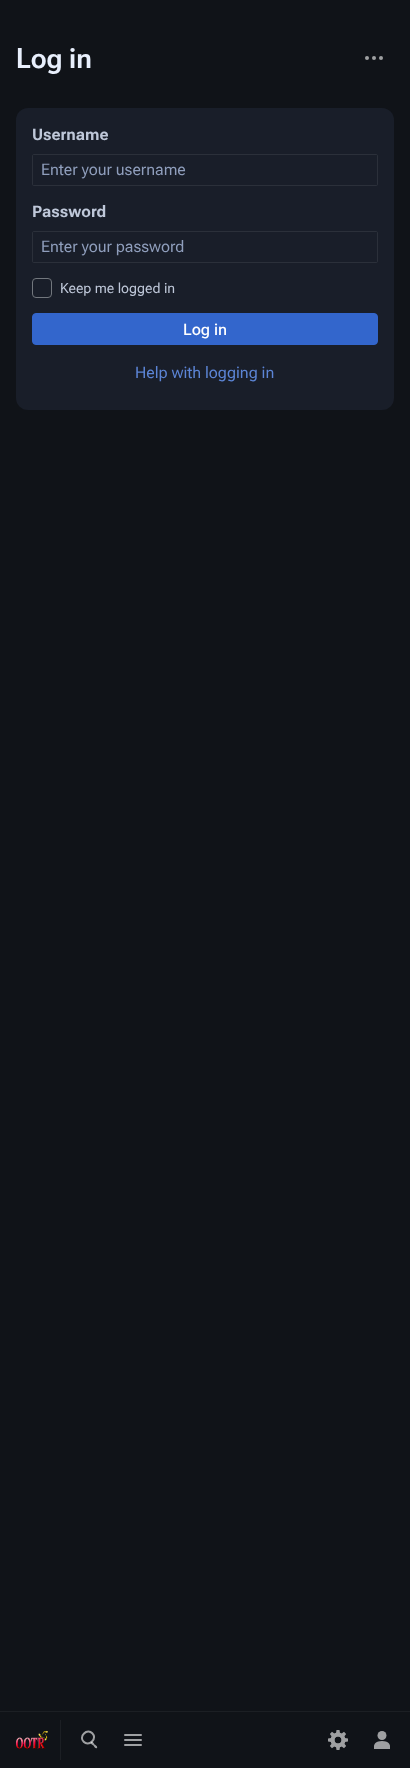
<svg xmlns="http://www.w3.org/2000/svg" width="410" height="1768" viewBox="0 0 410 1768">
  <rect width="100%" height="100%" fill="#101318"/>
  <text x="16" y="68" font-family="Roboto Flex" font-size="28" font-weight="600" fill="#e8effc">Log in</text>
  <image x="365" y="56" width="18" height="4" href="img1.png"/>
  <rect x="16" y="108" width="378" height="302" rx="12" fill="#191e29"/>
  <text x="32" y="140" font-family="Roboto Flex" font-size="16" font-weight="bold" fill="#bfc8d9">Username</text>
  <path d="M34 154C33 154 32 155 32 156V184C32 185 33 186 34 186H376C377 186 378 185 378 184V156C378 155 377 154 376 154ZM33 155V185H377V155Z" fill="#2b303a" fill-rule="evenodd"/>
  <text x="41" y="175" font-family="Roboto Flex" font-size="16" fill="#8f9ebc">Enter your username</text>
  <text x="32" y="217" font-family="Roboto Flex" font-size="16" font-weight="bold" fill="#bfc8d9">Password</text>
  <path d="M34 231C33 231 32 232 32 233V261C32 262 33 263 34 263H376C377 263 378 262 378 261V233C378 232 377 231 376 231ZM33 232V262H377V232Z" fill="#2b303a" fill-rule="evenodd"/>
  <text x="41" y="252" font-family="Roboto Flex" font-size="16" fill="#8f9ebc">Enter your password</text>
  <rect x="32.5" y="278.5" width="19" height="19" rx="3.5" fill="none" stroke="#72777d"/>
  <text x="60" y="293" font-family="'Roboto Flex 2'" font-size="14" fill="#bfc8d9">Keep me logged in</text>
  <rect x="32.5" y="313.5" width="345" height="31" rx="3.5" fill="#3366cc" stroke="#3366cc"/>
  <text x="183" y="335" font-family="Roboto Flex" font-size="16" font-weight="500" fill="#ffffff">Log in</text>
  <text x="135" y="378" font-family="Roboto Flex" font-size="16" fill="#5c85d6">Help with logging in</text>
  <rect x="0" y="1711" width="410" height="1" fill="#1c1f24"/>
  <rect x="60" y="1720" width="1" height="40" fill="#1c1f24"/>
  <image x="16" y="1730" width="32" height="19" href="img2.png"/>
  <path d="M91 1742C92.5 1741 94 1743.5 94.5 1744.5C95.5 1745 98 1746.5 97 1748C95.5 1749 94 1746.5 93.5 1745.5C92.5 1745 90 1743.5 91 1742Z" fill="#9fa1a3"/>
  <path d="M84 1733.5C89.5 1727.5 98 1736 92 1741.5C86.5 1747.5 78 1739 84 1733.5Z" fill="none" stroke="#ffffff" stroke-opacity="0.6" stroke-width="2"/>
  <rect x="124" y="1734" width="18" height="2" rx="1" fill="#9fa1a3"/>
  <rect x="124" y="1739" width="18" height="2" rx="1" fill="#9fa1a3"/>
  <rect x="124" y="1744" width="18" height="2" rx="1" fill="#9fa1a3"/>
  <image x="328" y="1730" width="20" height="20" href="img3.png"/>
  <image x="374" y="1731" width="16" height="18" href="img4.png"/>
</svg>
